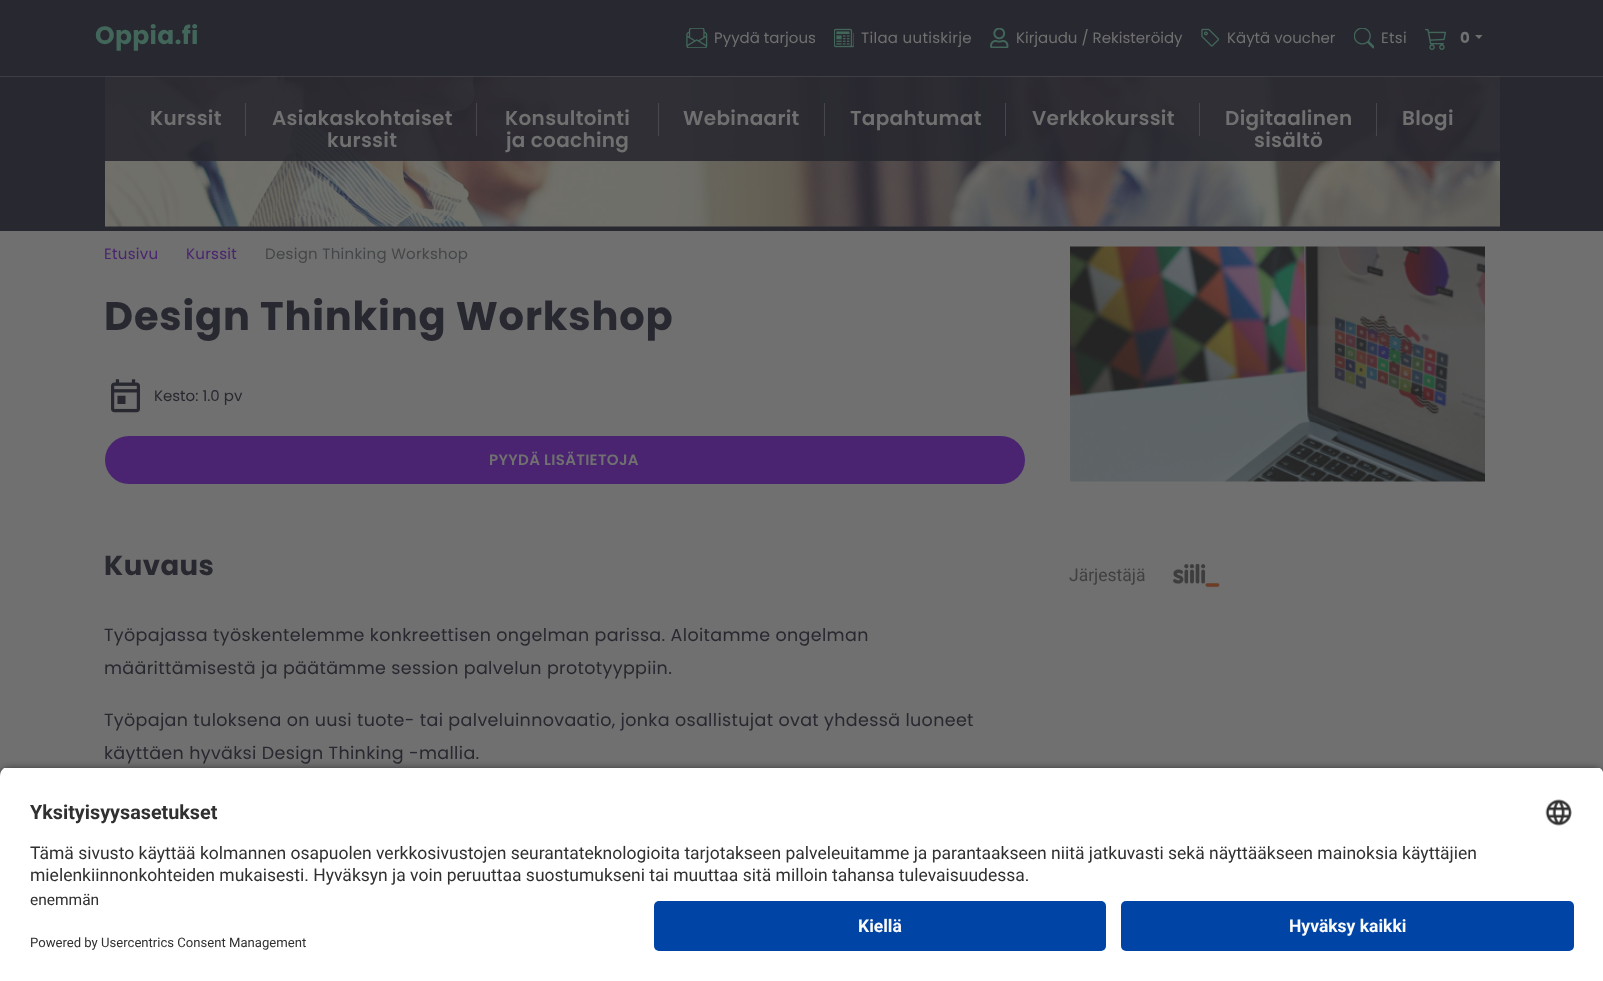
<svg xmlns="http://www.w3.org/2000/svg" width="1603" height="981" viewBox="0 0 1603 981">
  <defs>
    <filter id="blur1" x="-50%" y="-200%" width="200%" height="500%"><feGaussianBlur stdDeviation="4.5"/></filter>
    <clipPath id="clip1"><path d="M10 766H1594C1599.5 766 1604 770.5 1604 776V891H0V776C0 770.5 4.5 766 10 766Z"/></clipPath>
  </defs>
  <rect width="100%" height="100%" fill="#707070"/>
  <rect x="0" y="0" width="1603" height="231" fill="#282830"/>
  <text x="95" y="44" font-family="Poppins" font-size="25" font-weight="bold" letter-spacing="0.3" fill="#42665a">Oppia.fi</text>
  <image x="686" y="28" width="22" height="20" href="img1.png"/>
  <text x="714" y="43" font-family="Poppins" font-size="15" fill="#707070">Pyydä tarjous</text>
  <image x="834" y="28" width="20" height="20" href="img2.png"/>
  <text x="861" y="43" font-family="Poppins" font-size="15" letter-spacing="0.3" fill="#707070">Tilaa uutiskirje</text>
  <image x="990" y="28" width="19" height="20" href="img3.png"/>
  <text x="1016" y="43" font-family="Poppins" font-size="15" fill="#707070">Kirjaudu / Rekisteröidy</text>
  <image x="1201" y="28" width="19" height="19" href="img4.png"/>
  <text x="1227" y="43" font-family="Poppins" font-size="15" fill="#707070">Käytä voucher</text>
  <image x="1354" y="28" width="20" height="21" href="img5.png"/>
  <text x="1381" y="43" font-family="Poppins" font-size="15" letter-spacing="0.3" fill="#707070">Etsi</text>
  <image x="1425" y="28" width="22" height="22" href="img6.png"/>
  <text x="1460" y="43" font-family="Poppins" font-size="15" font-weight="bold" letter-spacing="1" fill="#707070">0</text>
  <path d="M1475 35H1482.5L1479 39Z" fill="#707070"/>
  <image x="105" y="76" width="1395" height="151" href="img7.png"/>
  <rect x="105" y="76" width="1395" height="85" fill="#282830" fill-opacity="0.9"/>
  <rect x="0" y="76" width="1603" height="1" fill="#707070" fill-opacity="0.3"/>
  <text x="150" y="125" font-family="Poppins" font-size="20" font-weight="600" letter-spacing="0.3" fill="#707070">Kurssit</text>
  <rect x="245" y="103" width="1" height="33" fill="#49494d"/>
  <text x="272" y="125" font-family="Poppins" font-size="20" font-weight="600" letter-spacing="0.3" fill="#707070">Asiakaskohtaiset</text>
  <text x="327" y="147" font-family="Poppins" font-size="20" font-weight="600" letter-spacing="0.3" fill="#707070">kurssit</text>
  <rect x="476" y="103" width="1" height="33" fill="#49474b"/>
  <text x="505" y="125" font-family="Poppins" font-size="20" font-weight="600" letter-spacing="0.3" fill="#707070">Konsultointi</text>
  <text x="506" y="147" font-family="Poppins" font-size="20" font-weight="600" letter-spacing="0.3" fill="#707070">ja coaching</text>
  <rect x="658" y="103" width="1" height="33" fill="#49494d"/>
  <text x="683" y="125" font-family="Poppins" font-size="20" font-weight="600" letter-spacing="0.3" fill="#707070">Webinaarit</text>
  <rect x="824" y="103" width="1" height="33" fill="#47474b"/>
  <text x="850" y="125" font-family="Poppins" font-size="20" font-weight="600" letter-spacing="0.3" fill="#707070">Tapahtumat</text>
  <rect x="1005" y="103" width="1" height="33" fill="#47464a"/>
  <text x="1032" y="125" font-family="Poppins" font-size="20" font-weight="600" letter-spacing="0.3" fill="#707070">Verkkokurssit</text>
  <rect x="1199" y="103" width="1" height="33" fill="#49494d"/>
  <text x="1225" y="125" font-family="Poppins" font-size="20" font-weight="600" letter-spacing="0.3" fill="#707070">Digitaalinen</text>
  <text x="1254" y="147" font-family="Poppins" font-size="20" font-weight="600" letter-spacing="0.3" fill="#707070">sisältö</text>
  <rect x="1376" y="103" width="1" height="33" fill="#707070" fill-opacity="0.4"/>
  <text x="1402" y="125" font-family="Poppins" font-size="20" font-weight="600" letter-spacing="0.3" fill="#707070">Blogi</text>
  <text x="104" y="259" font-family="Poppins" font-size="15" letter-spacing="0.3" fill="#4a2470">Etusivu</text>
  <text x="186" y="259" font-family="Poppins" font-size="15" letter-spacing="0.3" fill="#4a2470">Kurssit</text>
  <text x="265" y="259" font-family="Poppins" font-size="15" letter-spacing="0.3" fill="#444749">Design Thinking Workshop</text>
  <text x="104" y="330" font-family="Poppins" font-size="40" font-weight="bold" letter-spacing="0.8" fill="#282830">Design Thinking Workshop</text>
  <image x="111" y="379" width="29" height="34" href="img8.png"/>
  <text x="154" y="401" font-family="Poppins" font-size="15" fill="#282830">Kesto: 1.0 pv</text>
  <rect x="105" y="436" width="920" height="48" rx="24" fill="#4a2470"/>
  <text x="489" y="465" font-family="Poppins" font-size="15" font-weight="600" letter-spacing="0.3" fill="#707070">PYYDÄ LISÄTIETOJA</text>
  <text x="104" y="575" font-family="Poppins" font-size="27.5" font-weight="bold" letter-spacing="0.5" fill="#282830">Kuvaus</text>
  <text x="104" y="641" font-family="Poppins" font-size="17.5" letter-spacing="0.35" fill="#282830">Työpajassa työskentelemme konkreettisen ongelman parissa. Aloitamme ongelman</text>
  <text x="104" y="674" font-family="Poppins" font-size="17.5" letter-spacing="0.35" fill="#282830">määrittämisestä ja päätämme session palvelun prototyyppiin.</text>
  <text x="104" y="726" font-family="Poppins" font-size="17.5" letter-spacing="0.35" fill="#282830">Työpajan tuloksena on uusi tuote- tai palveluinnovaatio, jonka osallistujat ovat yhdessä luoneet</text>
  <text x="104" y="759" font-family="Poppins" font-size="17.5" letter-spacing="0.35" fill="#282830">käyttäen hyväksi Design Thinking -mallia.</text>
  <image x="1070" y="246" width="415" height="236" href="img9.png"/>
  <text x="1069" y="581" font-family="Roboto" font-size="17.5" fill="#404040">Järjestäjä</text>
  <image x="1173" y="563" width="48" height="27" href="img10.png"/>
  <rect x="0" y="770" width="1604" height="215" rx="10" fill="#000000" fill-opacity="0.8" filter="url(#blur1)"/>
  <g clip-path="url(#clip1)">
    <rect x="0" y="768" width="1603" height="123" fill="#ffffff"/>
  </g>
  <text x="30" y="819" font-family="Roboto" font-size="19.75" font-weight="bold" fill="#303030">Yksityisyysasetukset</text>
  <image x="1545" y="799" width="27" height="27" href="img11.png"/>
  <text x="30" y="859" font-family="Roboto" font-size="17.5" fill="#303030">Tämä sivusto käyttää kolmannen osapuolen verkkosivustojen seurantateknologioita tarjotakseen palveleuitamme ja parantaakseen niitä jatkuvasti sekä näyttääkseen mainoksia käyttäjien</text>
  <text x="30" y="881" font-family="Roboto" font-size="17.5" fill="#303030">mielenkiinnonkohteiden mukaisesti. Hyväksyn ja voin peruuttaa suostumukseni tai muuttaa sitä milloin tahansa tulevaisuudessa.</text>
  <rect x="0" y="891" width="1603" height="90" fill="#ffffff"/>
  <text x="30" y="905" font-family="Roboto" font-size="15.5" fill="#303030">enemmän</text>
  <text x="30" y="947" font-family="Roboto" font-size="13.1" fill="#303030">Powered by Usercentrics Consent Management</text>
  <rect x="654" y="901" width="452" height="50" rx="5" fill="#0045a5"/>
  <text x="858" y="932" font-family="Roboto" font-size="17.5" font-weight="bold" fill="#fafafa">Kiellä</text>
  <rect x="1121" y="901" width="453" height="50" rx="5" fill="#0045a5"/>
  <text x="1289" y="932" font-family="Roboto" font-size="17.5" font-weight="bold" fill="#fafafa">Hyväksy kaikki</text>
</svg>
